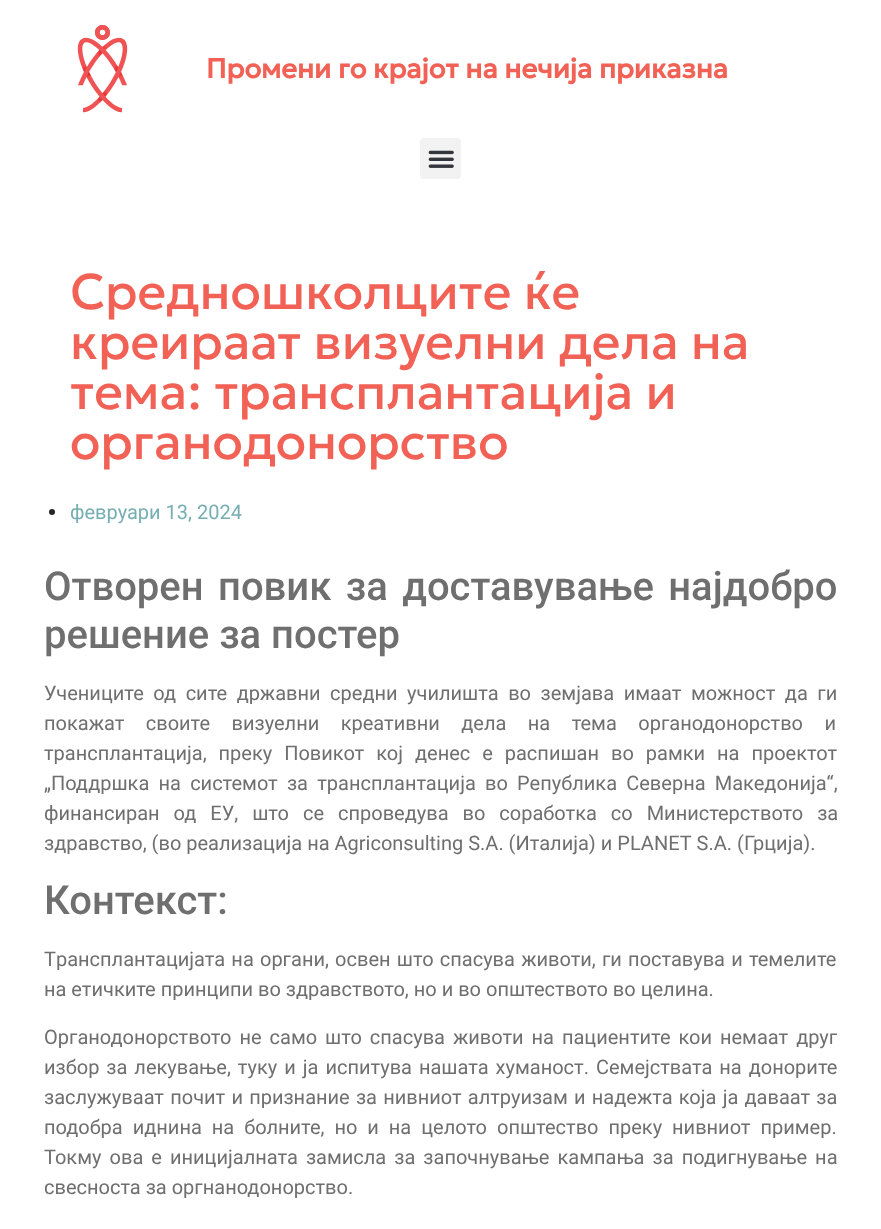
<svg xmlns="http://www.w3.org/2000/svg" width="881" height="1229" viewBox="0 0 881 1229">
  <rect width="100%" height="100%" fill="#ffffff"/>
  <image x="77" y="25" width="51" height="88" href="img1.png"/>
  <text x="206" y="78" font-family="Geologica" font-size="27.5" font-weight="bold" fill="#f26155">Промени го крајот на нечија приказна</text>
  <rect x="420" y="138" width="41" height="41" rx="4" fill="#f2f2f2"/>
  <image x="428" y="150" width="26" height="18" href="img2.png"/>
  <text x="70" y="309" font-family="Geologica" font-size="50" fill="#f26155">Средношколците ќе</text>
  <text x="70" y="359" font-family="Geologica" font-size="50" fill="#f26155">креираат визуелни дела на</text>
  <text x="70" y="409" font-family="Geologica" font-size="50" fill="#f26155">тема: трансплантација и</text>
  <text x="70" y="459" font-family="Geologica" font-size="50" fill="#f26155">органодонорство</text>
  <circle cx="52" cy="512" r="3" fill="#242424"/>
  <text x="70" y="519" font-family="Roboto" font-size="20" fill="#77aeb2">февруари 13, 2024</text>
  <text x="44" y="600" word-spacing="4.5" font-family="Roboto" font-size="40" font-weight="500" fill="#6f6f6f">Отворен повик за доставување најдобро</text>
  <text x="44" y="648" font-family="Roboto" font-size="40" font-weight="500" fill="#6f6f6f">решение за постер</text>
  <text x="44" y="700" word-spacing="4.6" font-family="Roboto" font-size="20" fill="#6f6f6f">Учениците од сите државни средни училишта во земјава имаат можност да ги</text>
  <text x="44" y="730" word-spacing="16.5" font-family="Roboto" font-size="20" fill="#6f6f6f">покажат своите визуелни креативни дела на тема органодонорство и</text>
  <text x="44" y="760" word-spacing="7" font-family="Roboto" font-size="20" fill="#6f6f6f">трансплантација, преку Повикот кој денес е распишан во рамки на проектот</text>
  <text x="44" y="790" word-spacing="4.25" font-family="Roboto" font-size="20" fill="#6f6f6f">„Поддршка на системот за трансплантација во Република Северна Македонија“,</text>
  <text x="44" y="820" word-spacing="9" font-family="Roboto" font-size="20" fill="#6f6f6f">финансиран од ЕУ, што се спроведува во соработка со Министерството за</text>
  <text x="44" y="850" font-family="Roboto" font-size="20" fill="#6f6f6f">здравство, (во реализација на Agriconsulting S.A. (Италија) и PLANET S.A. (Грција).</text>
  <text x="44" y="914" font-family="Roboto" font-size="40" font-weight="500" fill="#6f6f6f">Контекст:</text>
  <text x="44" y="966" word-spacing="1.25" font-family="Roboto" font-size="20" fill="#6f6f6f">Tрансплантацијата на органи, освен што спасува животи, ги поставува и темелите</text>
  <text x="44" y="996" font-family="Roboto" font-size="20" fill="#6f6f6f">на етичките принципи во здравството, но и во општеството во целина.</text>
  <text x="44" y="1044" word-spacing="3" font-family="Roboto" font-size="20" fill="#6f6f6f">Органодонорството не само што спасува животи на пациентите кои немаат друг</text>
  <text x="44" y="1074" word-spacing="2" font-family="Roboto" font-size="20" fill="#6f6f6f">избор за лекување, туку и ја испитува нашата хуманост. Семејствата на донорите</text>
  <text x="44" y="1104" word-spacing="1.25" font-family="Roboto" font-size="20" fill="#6f6f6f">заслужуваат почит и признание за нивниот алтруизам и надежта која ја даваат за</text>
  <text x="44" y="1134" word-spacing="5" font-family="Roboto" font-size="20" fill="#6f6f6f">подобра иднина на болните, но и на целото општество преку нивниот пример.</text>
  <text x="44" y="1164" word-spacing="3.1" font-family="Roboto" font-size="20" fill="#6f6f6f">Токму ова е иницијалната замисла за започнување кампања за подигнување на</text>
  <text x="44" y="1194" font-family="Roboto" font-size="20" fill="#6f6f6f">свесноста за оргнанодонорство.</text>
</svg>
